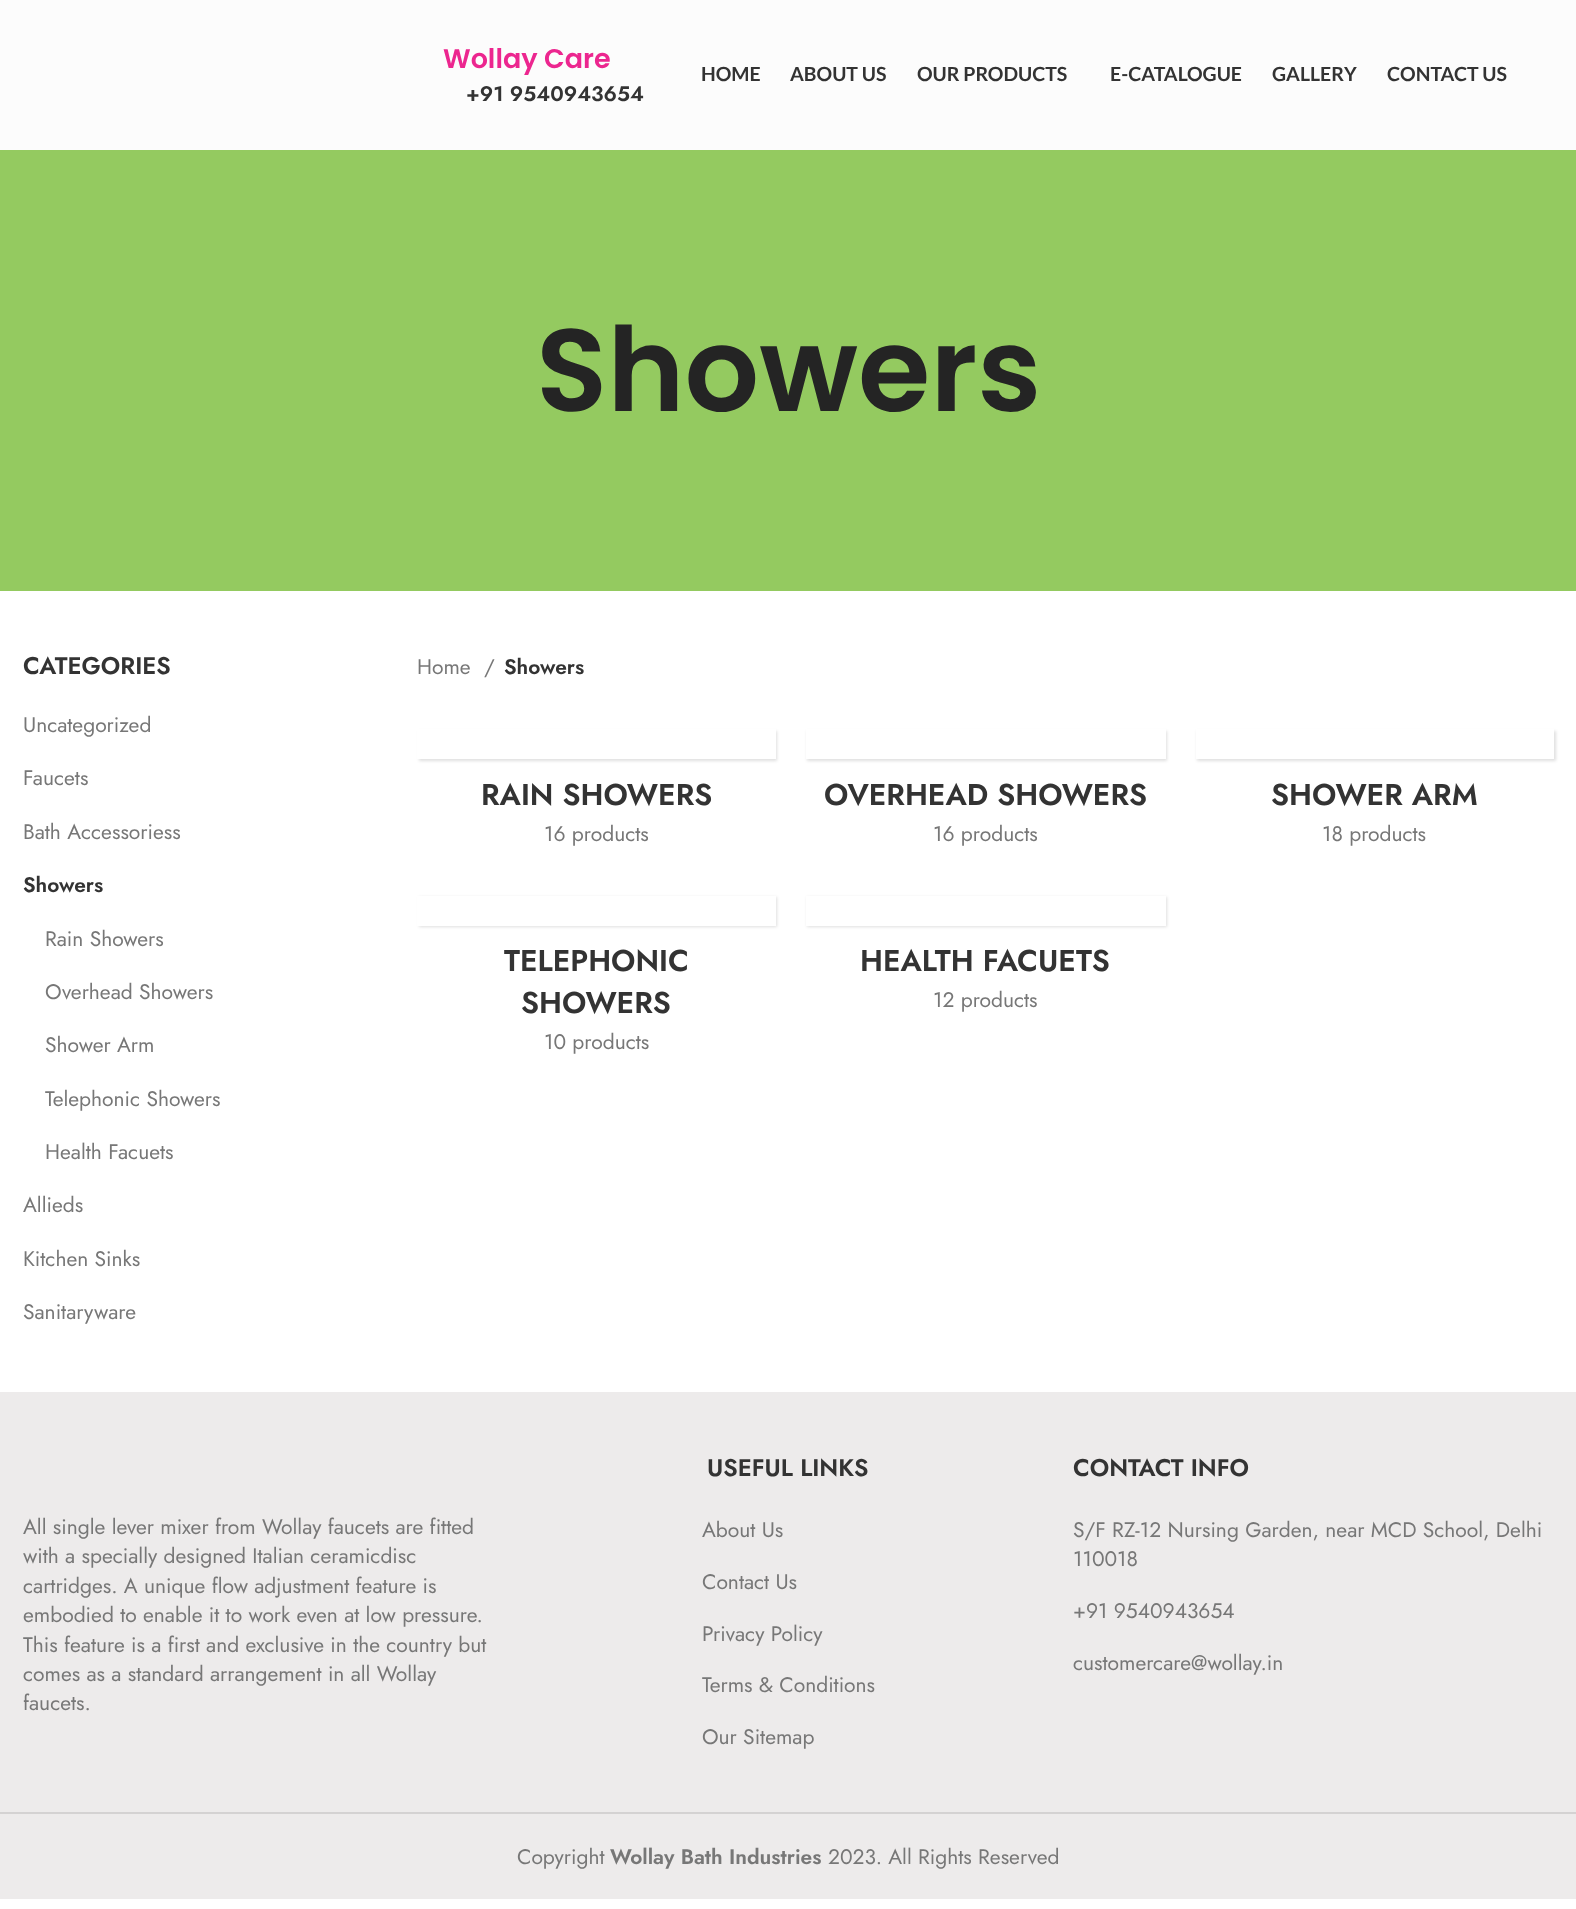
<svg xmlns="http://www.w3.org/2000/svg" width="1576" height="1909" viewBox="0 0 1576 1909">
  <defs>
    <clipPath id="clip1"><path d="M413 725H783V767H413ZM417 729H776V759H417Z" clip-rule="evenodd"/></clipPath>
    <filter id="blur1" x="-50%" y="-200%" width="200%" height="500%"><feGaussianBlur stdDeviation="1.5"/></filter>
    <clipPath id="clip2"><path d="M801 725H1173V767H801ZM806 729H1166V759H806Z" clip-rule="evenodd"/></clipPath>
    <clipPath id="clip3"><path d="M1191 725H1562V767H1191ZM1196 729H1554V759H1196Z" clip-rule="evenodd"/></clipPath>
    <clipPath id="clip4"><path d="M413 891H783V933H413ZM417 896H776V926H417Z" clip-rule="evenodd"/></clipPath>
    <clipPath id="clip5"><path d="M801 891H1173V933H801ZM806 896H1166V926H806Z" clip-rule="evenodd"/></clipPath>
  </defs>
  <rect width="100%" height="100%" fill="#ffffff"/>
  <rect x="0" y="0" width="1576" height="150" fill="#fcfcfc"/>
  <text x="443" y="68" font-family="Poppins" font-size="27" font-weight="600" fill="#ec268f">Wollay Care</text>
  <text x="466" y="101" font-family="Jost" font-size="21" font-weight="600" fill="#333333">+91 9540943654</text>
  <text x="701" y="81" font-family="Lato" font-size="19.5" font-weight="bold" fill="#333333">HOME</text>
  <text x="790" y="81" font-family="Lato" font-size="19.5" font-weight="bold" fill="#333333">ABOUT US</text>
  <text x="917" y="81" font-family="Lato" font-size="19.5" font-weight="bold" fill="#333333">OUR PRODUCTS</text>
  <text x="1110" y="81" font-family="Lato" font-size="19.5" font-weight="bold" fill="#333333">E-CATALOGUE</text>
  <text x="1272" y="81" font-family="Lato" font-size="19.5" font-weight="bold" fill="#333333">GALLERY</text>
  <text x="1387" y="81" font-family="Lato" font-size="19.5" font-weight="bold" fill="#333333">CONTACT US</text>
  <rect x="0" y="150" width="1576" height="441" fill="#94ca60"/>
  <text x="536" y="411" font-family="Poppins" font-size="117" font-weight="600" fill="#242424">Showers</text>
  <text x="23" y="674" font-family="Jost" font-size="24" font-weight="600" fill="#333333">CATEGORIES</text>
  <text x="23" y="732" font-family="Jost" font-size="21" fill="#777777">Uncategorized</text>
  <text x="23" y="785" font-family="Jost" font-size="21" fill="#777777">Faucets</text>
  <text x="23" y="839" font-family="Jost" font-size="21" fill="#777777">Bath Accessoriess</text>
  <text x="23" y="892" font-family="Jost" font-size="21" font-weight="600" fill="#333333">Showers</text>
  <text x="45" y="946" font-family="Jost" font-size="21" fill="#777777">Rain Showers</text>
  <text x="45" y="999" font-family="Jost" font-size="21" fill="#777777">Overhead Showers</text>
  <text x="45" y="1052" font-family="Jost" font-size="21" fill="#777777">Shower Arm</text>
  <text x="45" y="1106" font-family="Jost" font-size="21" fill="#777777">Telephonic Showers</text>
  <text x="45" y="1159" font-family="Jost" font-size="21" fill="#777777">Health Facuets</text>
  <text x="23" y="1212" font-family="Jost" font-size="21" fill="#777777">Allieds</text>
  <text x="23" y="1266" font-family="Jost" font-size="21" fill="#777777">Kitchen Sinks</text>
  <text x="23" y="1319" font-family="Jost" font-size="21" fill="#777777">Sanitaryware</text>
  <text x="417" y="674" font-family="Jost" font-size="21" fill="#777777">Home</text>
  <text x="484" y="674" font-family="Jost" font-size="21" fill="#777777">/</text>
  <text x="504" y="674" font-family="Jost" font-size="21" font-weight="600" fill="#333333">Showers</text>
  <g clip-path="url(#clip1)">
    <rect x="419" y="731" width="358" height="30" fill="#000000" fill-opacity="0.12" filter="url(#blur1)"/>
  </g>
  <text x="481" y="805" font-family="Jost" font-size="30" font-weight="600" fill="#333333">RAIN SHOWERS</text>
  <text x="544" y="841" font-family="Jost" font-size="21" fill="#777777">16 products</text>
  <g clip-path="url(#clip2)">
    <rect x="807" y="731" width="360" height="30" fill="#000000" fill-opacity="0.12" filter="url(#blur1)"/>
  </g>
  <text x="824" y="805" font-family="Jost" font-size="30" font-weight="600" fill="#333333">OVERHEAD SHOWERS</text>
  <text x="933" y="841" font-family="Jost" font-size="21" fill="#777777">16 products</text>
  <g clip-path="url(#clip3)">
    <rect x="1197" y="731" width="359" height="30" fill="#000000" fill-opacity="0.12" filter="url(#blur1)"/>
  </g>
  <text x="1271" y="805" font-family="Jost" font-size="30" font-weight="600" fill="#333333">SHOWER ARM</text>
  <text x="1322" y="841" font-family="Jost" font-size="21" fill="#777777">18 products</text>
  <g clip-path="url(#clip4)">
    <rect x="419" y="897" width="358" height="30" fill="#000000" fill-opacity="0.12" filter="url(#blur1)"/>
  </g>
  <text x="504" y="971" font-family="Jost" font-size="30" font-weight="600" fill="#333333">TELEPHONIC</text>
  <text x="521" y="1013" font-family="Jost" font-size="30" font-weight="600" fill="#333333">SHOWERS</text>
  <text x="544" y="1049" font-family="Jost" font-size="21" fill="#777777">10 products</text>
  <g clip-path="url(#clip5)">
    <rect x="807" y="897" width="360" height="30" fill="#000000" fill-opacity="0.12" filter="url(#blur1)"/>
  </g>
  <text x="860" y="971" font-family="Jost" font-size="30" font-weight="600" fill="#333333">HEALTH FACUETS</text>
  <text x="933" y="1007" font-family="Jost" font-size="21" fill="#777777">12 products</text>
  <rect x="0" y="1392" width="1576" height="507" fill="#edebeb"/>
  <text x="23" y="1534" font-family="Jost" font-size="21" fill="#777777">All single lever mixer from Wollay faucets are fitted</text>
  <text x="23" y="1563" font-family="Jost" font-size="21" fill="#777777">with a specially designed Italian ceramicdisc</text>
  <text x="23" y="1593" font-family="Jost" font-size="21" fill="#777777">cartridges. A unique flow adjustment feature is</text>
  <text x="23" y="1622" font-family="Jost" font-size="21" fill="#777777">embodied to enable it to work even at low pressure.</text>
  <text x="23" y="1652" font-family="Jost" font-size="21" fill="#777777">This feature is a first and exclusive in the country but</text>
  <text x="23" y="1681" font-family="Jost" font-size="21" fill="#777777">comes as a standard arrangement in all Wollay</text>
  <text x="23" y="1710" font-family="Jost" font-size="21" fill="#777777">faucets.</text>
  <text x="707" y="1476" font-family="Jost" font-size="24" font-weight="600" fill="#333333">USEFUL LINKS</text>
  <text x="702" y="1537" font-family="Jost" font-size="21" fill="#777777">About Us</text>
  <text x="702" y="1589" font-family="Jost" font-size="21" fill="#777777">Contact Us</text>
  <text x="702" y="1641" font-family="Jost" font-size="21" fill="#777777">Privacy Policy</text>
  <text x="702" y="1692" font-family="Jost" font-size="21" fill="#777777">Terms &amp; Conditions</text>
  <text x="702" y="1744" font-family="Jost" font-size="21" fill="#777777">Our Sitemap</text>
  <text x="1073" y="1476" font-family="Jost" font-size="24" font-weight="600" fill="#333333">CONTACT INFO</text>
  <text x="1073" y="1537" font-family="Jost" font-size="21" fill="#777777">S/F RZ-12 Nursing Garden, near MCD School, Delhi</text>
  <text x="1073" y="1566" font-family="Jost" font-size="21" fill="#777777">110018</text>
  <text x="1073" y="1618" font-family="Jost" font-size="21" fill="#777777">+91 9540943654</text>
  <text x="1073" y="1670" font-family="Jost" font-size="21" fill="#777777">customercare@wollay.in</text>
  <rect x="0" y="1812" width="1576" height="2" fill="#d4d2d2"/>
  <text x="517" y="1864" font-family="Jost" font-size="21" fill="#777777">Copyright</text>
  <text x="610" y="1864" font-family="Jost" font-size="21" font-weight="600" fill="#777777">Wollay Bath Industries</text>
  <text x="828" y="1864" font-family="Jost" font-size="21" fill="#777777">2023. All Rights Reserved</text>
</svg>
